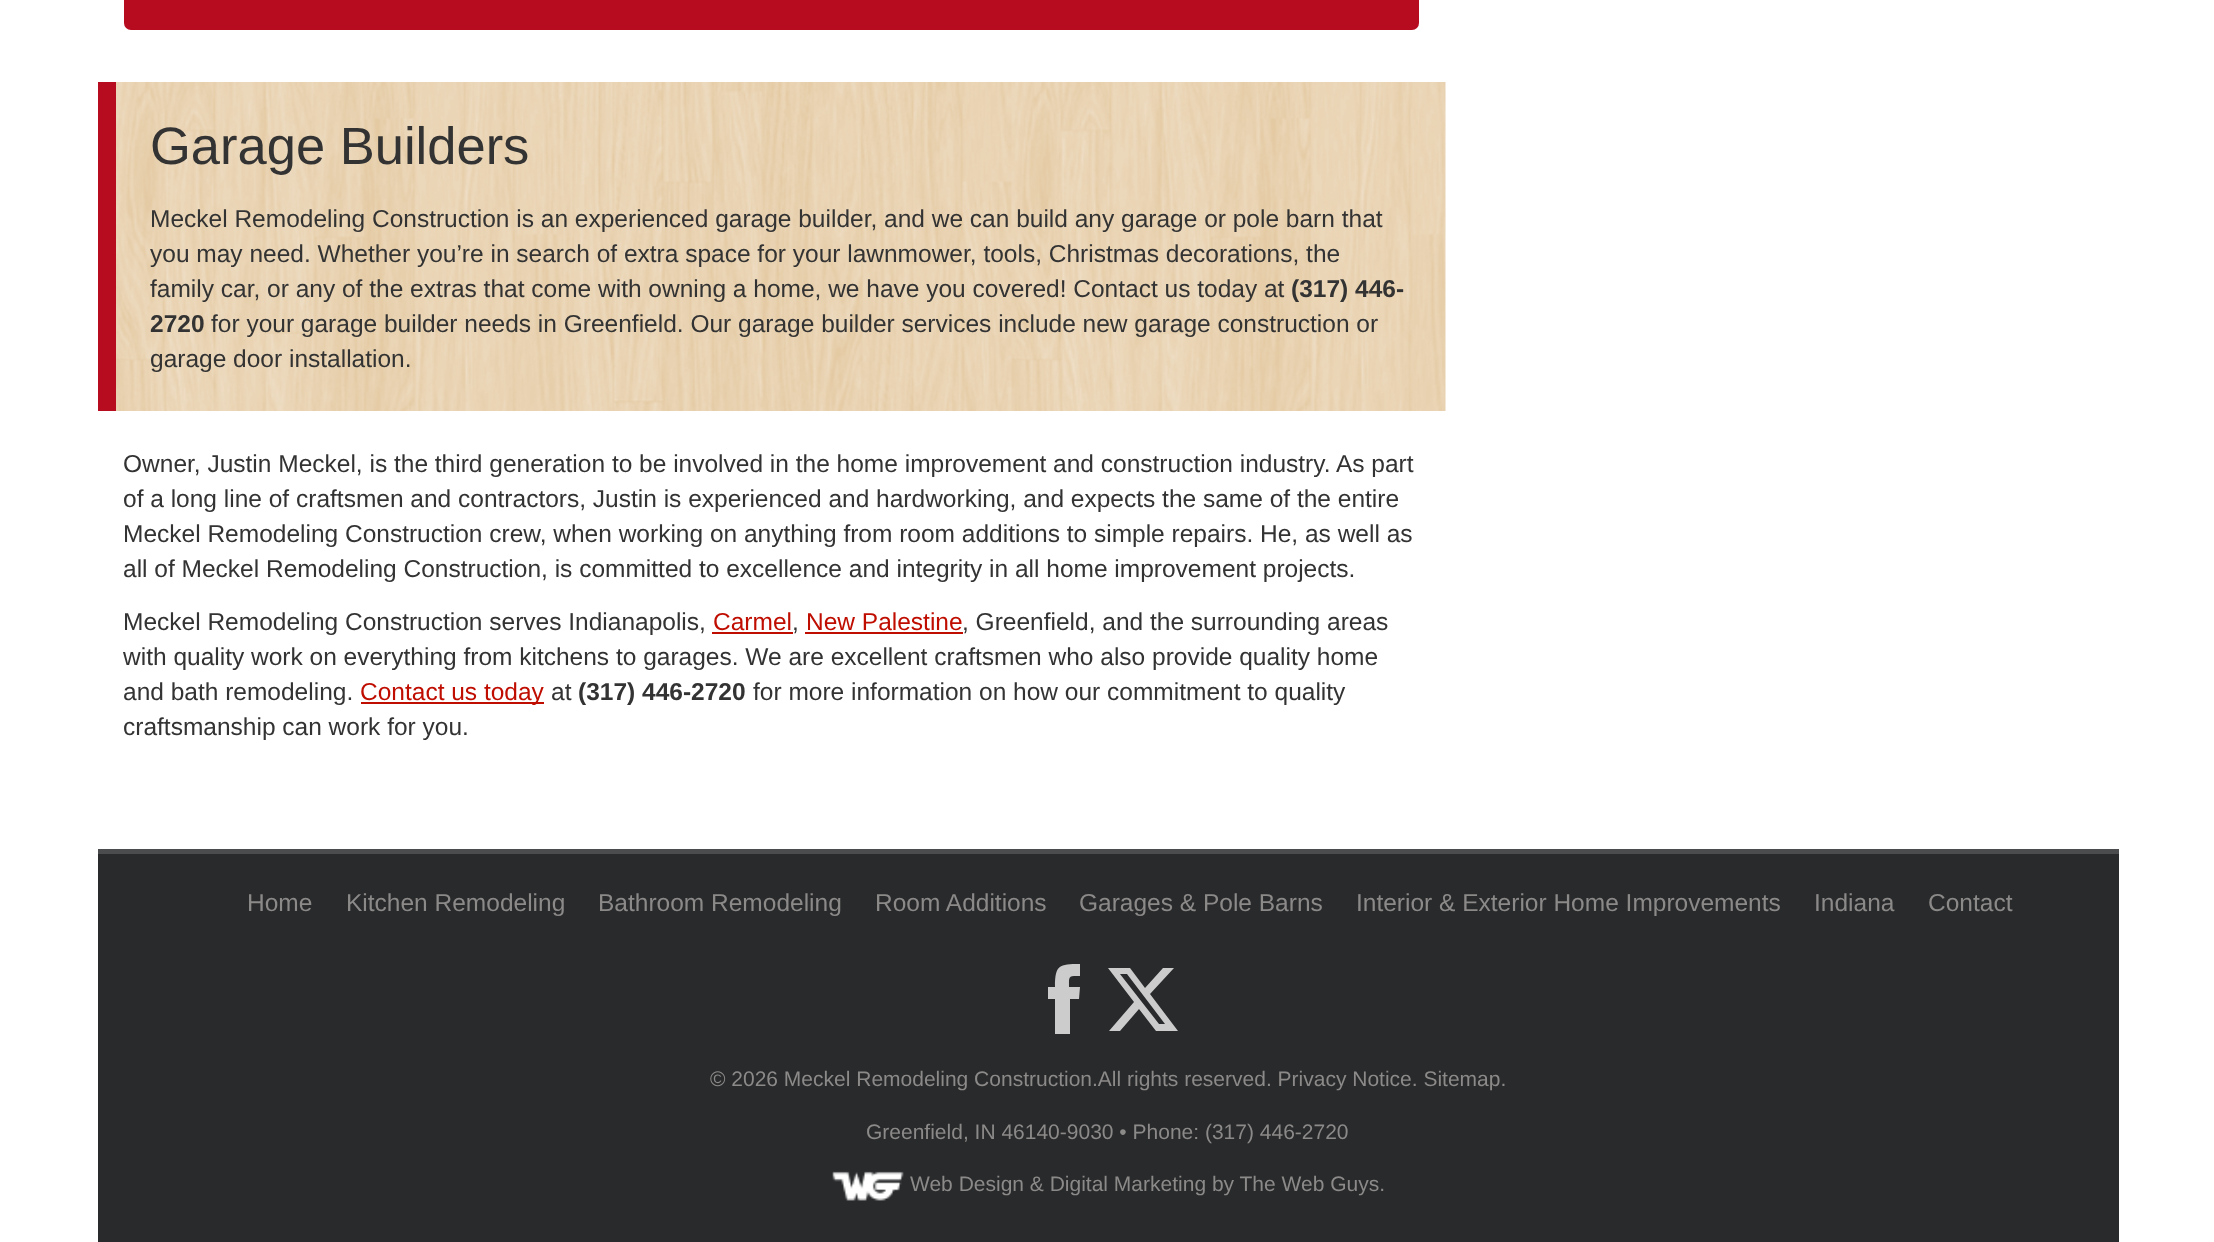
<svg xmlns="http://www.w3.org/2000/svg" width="2214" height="1242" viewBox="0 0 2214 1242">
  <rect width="100%" height="100%" fill="#ffffff"/>
  <rect x="124" y="-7" width="1295" height="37" rx="7" fill="#b70b20"/>
  <image x="116" y="82" width="1330" height="329" href="img1.png"/>
  <rect x="98" y="82" width="18" height="329" fill="#b70b20"/>
  <text x="150" y="164" font-family="Liberation Sans" font-size="52.5" fill="#333333">Garage Builders</text>
  <text x="150" y="227" font-family="Liberation Sans" font-size="24.5" fill="#333333">Meckel Remodeling Construction is an experienced garage builder, and we can build any garage or pole barn that</text>
  <text x="150" y="262" font-family="Liberation Sans" font-size="24.5" fill="#333333">you may need. Whether you’re in search of extra space for your lawnmower, tools, Christmas decorations, the</text>
  <text x="150" y="297" font-family="Liberation Sans" font-size="24.5" fill="#333333">family car, or any of the extras that come with owning a home, we have you covered! Contact us today at</text>
  <text x="1291" y="297" font-family="Liberation Sans" font-size="24.5" font-weight="bold" fill="#333333">(317) 446-</text>
  <text x="150" y="332" font-family="Liberation Sans" font-size="24.5" font-weight="bold" fill="#333333">2720</text>
  <text x="211" y="332" font-family="Liberation Sans" font-size="24.5" fill="#333333">for your garage builder needs in Greenfield. Our garage builder services include new garage construction or</text>
  <text x="150" y="367" font-family="Liberation Sans" font-size="24.5" fill="#333333">garage door installation.</text>
  <text x="123" y="472" font-family="Liberation Sans" font-size="24.5" fill="#333333">Owner, Justin Meckel, is the third generation to be involved in the home improvement and construction industry. As part</text>
  <text x="123" y="507" font-family="Liberation Sans" font-size="24.5" fill="#333333">of a long line of craftsmen and contractors, Justin is experienced and hardworking, and expects the same of the entire</text>
  <text x="123" y="542" font-family="Liberation Sans" font-size="24.5" fill="#333333">Meckel Remodeling Construction crew, when working on anything from room additions to simple repairs. He, as well as</text>
  <text x="123" y="577" font-family="Liberation Sans" font-size="24.5" fill="#333333">all of Meckel Remodeling Construction, is committed to excellence and integrity in all home improvement projects.</text>
  <text x="123" y="630" font-family="Liberation Sans" font-size="24.5" fill="#333333">Meckel Remodeling Construction serves Indianapolis,</text>
  <text x="713" y="630" font-family="Liberation Sans" font-size="24.5" fill="#bf0d00">Carmel</text>
  <rect x="712" y="632" width="81" height="2" fill="#bf0d00"/>
  <text x="792" y="630" font-family="Liberation Sans" font-size="24.5" fill="#333333">,</text>
  <text x="806" y="630" font-family="Liberation Sans" font-size="24.5" fill="#bf0d00">New Palestine</text>
  <rect x="805" y="632" width="158" height="2" fill="#bf0d00"/>
  <text x="962" y="630" font-family="Liberation Sans" font-size="24.5" fill="#333333">, Greenfield, and the surrounding areas</text>
  <text x="123" y="665" font-family="Liberation Sans" font-size="24.5" fill="#333333">with quality work on everything from kitchens to garages. We are excellent craftsmen who also provide quality home</text>
  <text x="123" y="700" font-family="Liberation Sans" font-size="24.5" fill="#333333">and bath remodeling.</text>
  <rect x="361" y="702" width="183" height="2" fill="#bf0d00"/>
  <text x="360" y="700" font-family="Liberation Sans" font-size="24.5" fill="#bf0d00">Contact us today</text>
  <text x="551" y="700" font-family="Liberation Sans" font-size="24.5" fill="#333333">at</text>
  <text x="578" y="700" font-family="Liberation Sans" font-size="24.5" font-weight="bold" fill="#333333">(317) 446-2720</text>
  <text x="753" y="700" font-family="Liberation Sans" font-size="24.5" fill="#333333">for more information on how our commitment to quality</text>
  <text x="123" y="735" font-family="Liberation Sans" font-size="24.5" fill="#333333">craftsmanship can work for you.</text>
  <rect x="98" y="854" width="2021" height="388" fill="#282a2b"/>
  <rect x="98" y="849" width="2021" height="5" fill="#4b4c4d"/>
  <text x="247" y="911" font-family="Liberation Sans" font-size="24.5" fill="#8c8989">Home</text>
  <text x="346" y="911" font-family="Liberation Sans" font-size="24.5" fill="#8c8989">Kitchen Remodeling</text>
  <text x="598" y="911" font-family="Liberation Sans" font-size="24.5" fill="#8c8989">Bathroom Remodeling</text>
  <text x="875" y="911" font-family="Liberation Sans" font-size="24.5" fill="#8c8989">Room Additions</text>
  <text x="1079" y="911" font-family="Liberation Sans" font-size="24.5" fill="#8c8989">Garages &amp; Pole Barns</text>
  <text x="1356" y="911" font-family="Liberation Sans" font-size="24.5" fill="#8c8989">Interior &amp; Exterior Home Improvements</text>
  <text x="1814" y="911" font-family="Liberation Sans" font-size="24.5" fill="#8c8989">Indiana</text>
  <text x="1928" y="911" font-family="Liberation Sans" font-size="24.5" fill="#8c8989">Contact</text>
  <path d="M1070 1034H1055V999H1048V987H1055C1055 965 1059 964 1080 964V976C1068 976 1069 976 1069 987H1080L1079 999H1070Z" fill="#cccccc"/>
  <path d="M1163 968H1174L1150 994L1178 1031H1156L1139 1009L1120 1031H1109L1134 1002L1108 968H1130L1145 988ZM1159 1024H1165L1127 974H1120Z" fill="#cccccc"/>
  <text x="710" y="1086" font-family="Liberation Sans" font-size="21" fill="#8c8989">© 2026 Meckel Remodeling Construction.All rights reserved. Privacy Notice. Sitemap.</text>
  <text x="866" y="1139" font-family="Liberation Sans" font-size="21" fill="#8c8989">Greenfield, IN 46140-9030 • Phone: (317) 446-2720</text>
  <image x="832" y="1171" width="72" height="30" href="img2.png"/>
  <text x="910" y="1191" font-family="Liberation Sans" font-size="21" fill="#8c8989">Web Design &amp; Digital Marketing by The Web Guys.</text>
</svg>
